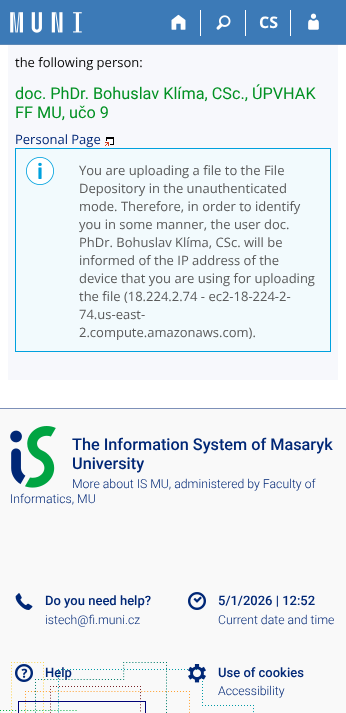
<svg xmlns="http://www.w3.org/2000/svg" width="346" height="713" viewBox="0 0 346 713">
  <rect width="100%" height="100%" fill="#ffffff"/>
  <rect x="0" y="0" width="346" height="44" fill="#3c7ab7"/>
  <rect x="0" y="44" width="346" height="1" fill="#5c88b6"/>
  <image x="10" y="12" width="72" height="21" href="img1.png"/>
  <rect x="200" y="10" width="1" height="26" fill="#ffffff"/>
  <image x="171" y="14" width="15" height="16" href="img2.png"/>
  <rect x="245" y="10" width="1" height="26" fill="#ffffff"/>
  <image x="216" y="15" width="15" height="15" href="img3.png"/>
  <rect x="290" y="10" width="1" height="26" fill="#ffffff"/>
  <text x="259" y="28" font-family="Open Sans" font-size="16" font-weight="bold" fill="#ffffff">CS</text>
  <image x="308" y="13" width="11" height="17" href="img4.png"/>
  <rect x="8" y="45" width="330" height="335" fill="#f7f8fc"/>
  <text x="15" y="67" font-family="Open Sans" font-size="13" fill="#0a0a0a">the following person:</text>
  <text x="15" y="99" font-family="Roboto" font-size="16.25" fill="#029123">doc. PhDr. Bohuslav Klíma, CSc., ÚPVHAK</text>
  <text x="15" y="118" font-family="Roboto" font-size="16.25" fill="#029123">FF MU, učo 9</text>
  <text x="15" y="144" font-family="Open Sans" font-size="13" fill="#002776">Personal Page</text>
  <image x="105" y="137" width="9" height="9" href="img5.png"/>
  <rect x="15.5" y="148.5" width="315" height="203" fill="#f2fafd" stroke="#00a1de"/>
  <circle cx="40" cy="171" r="14" fill="#ffffff"/>
  <image x="26" y="157" width="28" height="28" href="img6.png"/>
  <text x="79" y="175" font-family="Open Sans" font-size="13" fill="#5a5a5a">You are uploading a file to the File</text>
  <text x="79" y="193" font-family="Open Sans" font-size="13" fill="#5a5a5a">Depository in the unauthenticated</text>
  <text x="79" y="211" font-family="Open Sans" font-size="13" fill="#5a5a5a">mode. Therefore, in order to identify</text>
  <text x="79" y="229" font-family="Open Sans" font-size="13" fill="#5a5a5a">you in some manner, the user doc.</text>
  <text x="79" y="247" font-family="Open Sans" font-size="13" fill="#5a5a5a">PhDr. Bohuslav Klíma, CSc. will be</text>
  <text x="79" y="265" font-family="Open Sans" font-size="13" fill="#5a5a5a">informed of the IP address of the</text>
  <text x="79" y="283" font-family="Open Sans" font-size="13" fill="#5a5a5a">device that you are using for uploading</text>
  <text x="79" y="301" font-family="Open Sans" font-size="13" fill="#5a5a5a">the file (18.224.2.74 - ec2-18-224-2-</text>
  <text x="79" y="319" font-family="Open Sans" font-size="13" fill="#5a5a5a">74.us-east-</text>
  <text x="79" y="337" font-family="Open Sans" font-size="13" fill="#5a5a5a">2.compute.amazonaws.com).</text>
  <rect x="0" y="409" width="346" height="304" fill="#f9f9f9"/>
  <rect x="0" y="408" width="346" height="1" fill="#7d90b8"/>
  <image x="0" y="662" width="254" height="51" href="img7.png"/>
  <image x="10" y="426" width="46" height="62" href="img8.png"/>
  <text x="72" y="450" font-family="Roboto" font-size="16.25" font-weight="500" fill="#002776">The Information System of Masaryk</text>
  <text x="72" y="469" font-family="Roboto" font-size="16.25" font-weight="500" fill="#002776">University</text>
  <text x="72" y="488" font-family="Roboto" font-size="12.25" font-weight="300" fill="#002776">More about IS MU, administered by Faculty of</text>
  <text x="10" y="503" font-family="Roboto" font-size="12.25" font-weight="300" fill="#002776">Informatics, MU</text>
  <image x="15" y="593" width="18" height="17" href="img9.png"/>
  <text x="45" y="605" font-family="Roboto" font-size="13" font-weight="500" fill="#002776">Do you need help?</text>
  <text x="45" y="624" font-family="Roboto" font-size="12.25" font-weight="300" fill="#002776">istech@fi.muni.cz</text>
  <image x="15" y="664" width="18" height="18" href="img10.png"/>
  <text x="45" y="677" font-family="Roboto" font-size="13" font-weight="500" fill="#002776">Help</text>
  <image x="188" y="592" width="18" height="18" href="img11.png"/>
  <text x="218" y="605" font-family="Roboto" font-size="13" font-weight="500" fill="#002776">5/1/2026 | 12:52</text>
  <text x="218" y="624" font-family="Roboto" font-size="12.25" font-weight="300" fill="#002776">Current date and time</text>
  <image x="188" y="664" width="18" height="19" href="img12.png"/>
  <text x="218" y="677" font-family="Roboto" font-size="13" font-weight="500" fill="#002776">Use of cookies</text>
  <text x="218" y="695" font-family="Roboto" font-size="12.25" font-weight="300" fill="#002776">Accessibility</text>
</svg>
